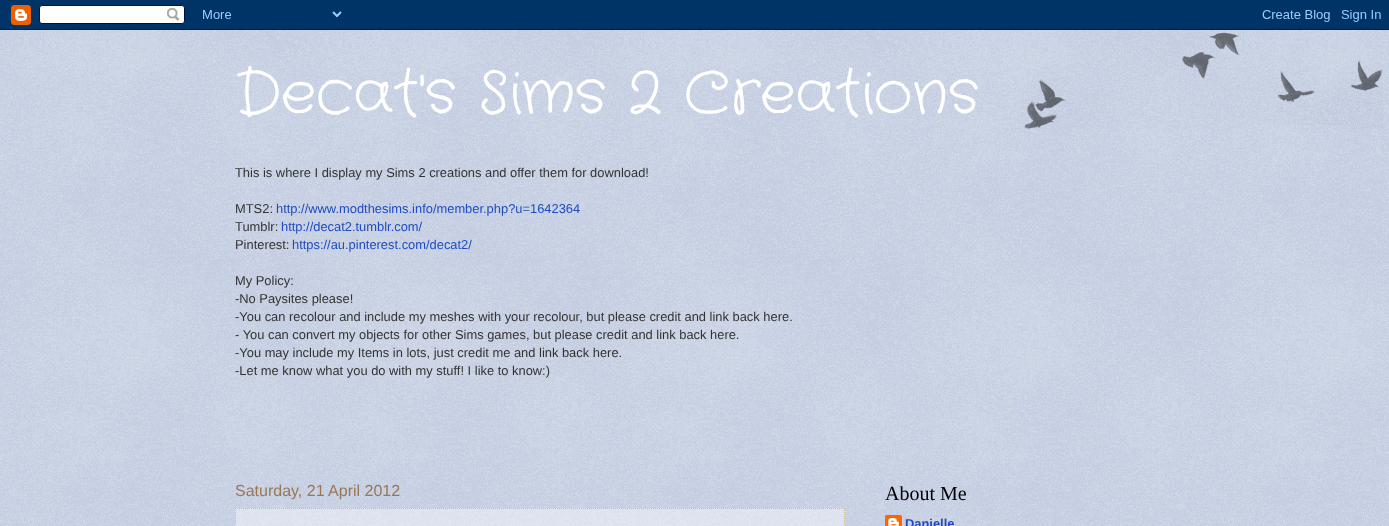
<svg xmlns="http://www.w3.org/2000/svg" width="1389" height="526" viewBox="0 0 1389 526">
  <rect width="100%" height="100%" fill="#99aacc"/>
  <image x="0" y="30" width="1389" height="496" href="img1.png"/>
  <image x="0" y="0" width="1389" height="30" href="img2.png"/>
  <text x="235" y="111" font-family="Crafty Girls" font-size="60" fill="#ffffff">Decat's Sims 2 Creations</text>
  <text x="235" y="177" font-family="Liberation Sans" font-size="12.9" fill="#333333">This is where I display my Sims 2 creations and offer them for download!</text>
  <text x="235" y="213" font-family="Liberation Sans" font-size="12.9" fill="#333333">MTS2:</text>
  <text x="276" y="213" font-family="Liberation Sans" font-size="12.9" fill="#1e4cc0">http://www.modthesims.info/member.php?u=1642364</text>
  <text x="235" y="231" font-family="Liberation Sans" font-size="12.9" fill="#333333">Tumblr:</text>
  <text x="281" y="231" font-family="Liberation Sans" font-size="12.9" fill="#1e4cc0">http://decat2.tumblr.com/</text>
  <text x="235" y="249" font-family="Liberation Sans" font-size="12.9" fill="#333333">Pinterest:</text>
  <text x="292" y="249" font-family="Liberation Sans" font-size="12.9" fill="#1e4cc0">https://au.pinterest.com/decat2/</text>
  <text x="235" y="285" font-family="Liberation Sans" font-size="12.9" fill="#333333">My Policy:</text>
  <text x="235" y="303" font-family="Liberation Sans" font-size="12.9" fill="#333333">-No Paysites please!</text>
  <text x="235" y="321" font-family="Liberation Sans" font-size="12.9" fill="#333333">-You can recolour and include my meshes with your recolour, but please credit and link back here.</text>
  <text x="235" y="339" font-family="Liberation Sans" font-size="12.9" fill="#333333">- You can convert my objects for other Sims games, but please credit and link back here.</text>
  <text x="235" y="357" font-family="Liberation Sans" font-size="12.9" fill="#333333">-You may include my Items in lots, just credit me and link back here.</text>
  <text x="235" y="375" font-family="Liberation Sans" font-size="12.9" fill="#333333">-Let me know what you do with my stuff! I like to know:)</text>
  <text x="235" y="496" font-family="Liberation Sans" font-size="16" fill="#997755">Saturday, 21 April 2012</text>
  <rect x="235" y="508" width="610" height="18" fill="#ffffff" fill-opacity="0.4"/>
  <path d="M235 508.5H845" fill="none" stroke="#ccbb99" stroke-dasharray="1 1"/>
  <path d="M844.5 508V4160" fill="none" stroke="#ccbb99" stroke-dasharray="1 1"/>
  <path d="M235.5 508V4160" fill="none" stroke="#ccbb99" stroke-dasharray="1 1"/>
  <text x="885" y="500" font-family="Liberation Serif" font-size="20" fill="#000000">About Me</text>
  <image x="885" y="515" width="17" height="11" href="img3.png"/>
  <text x="905" y="528" font-family="Liberation Sans" font-size="12.9" font-weight="bold" fill="#1e4cc0">Danielle</text>
  <image x="1024" y="32" width="359" height="97" href="img4.png"/>
</svg>
